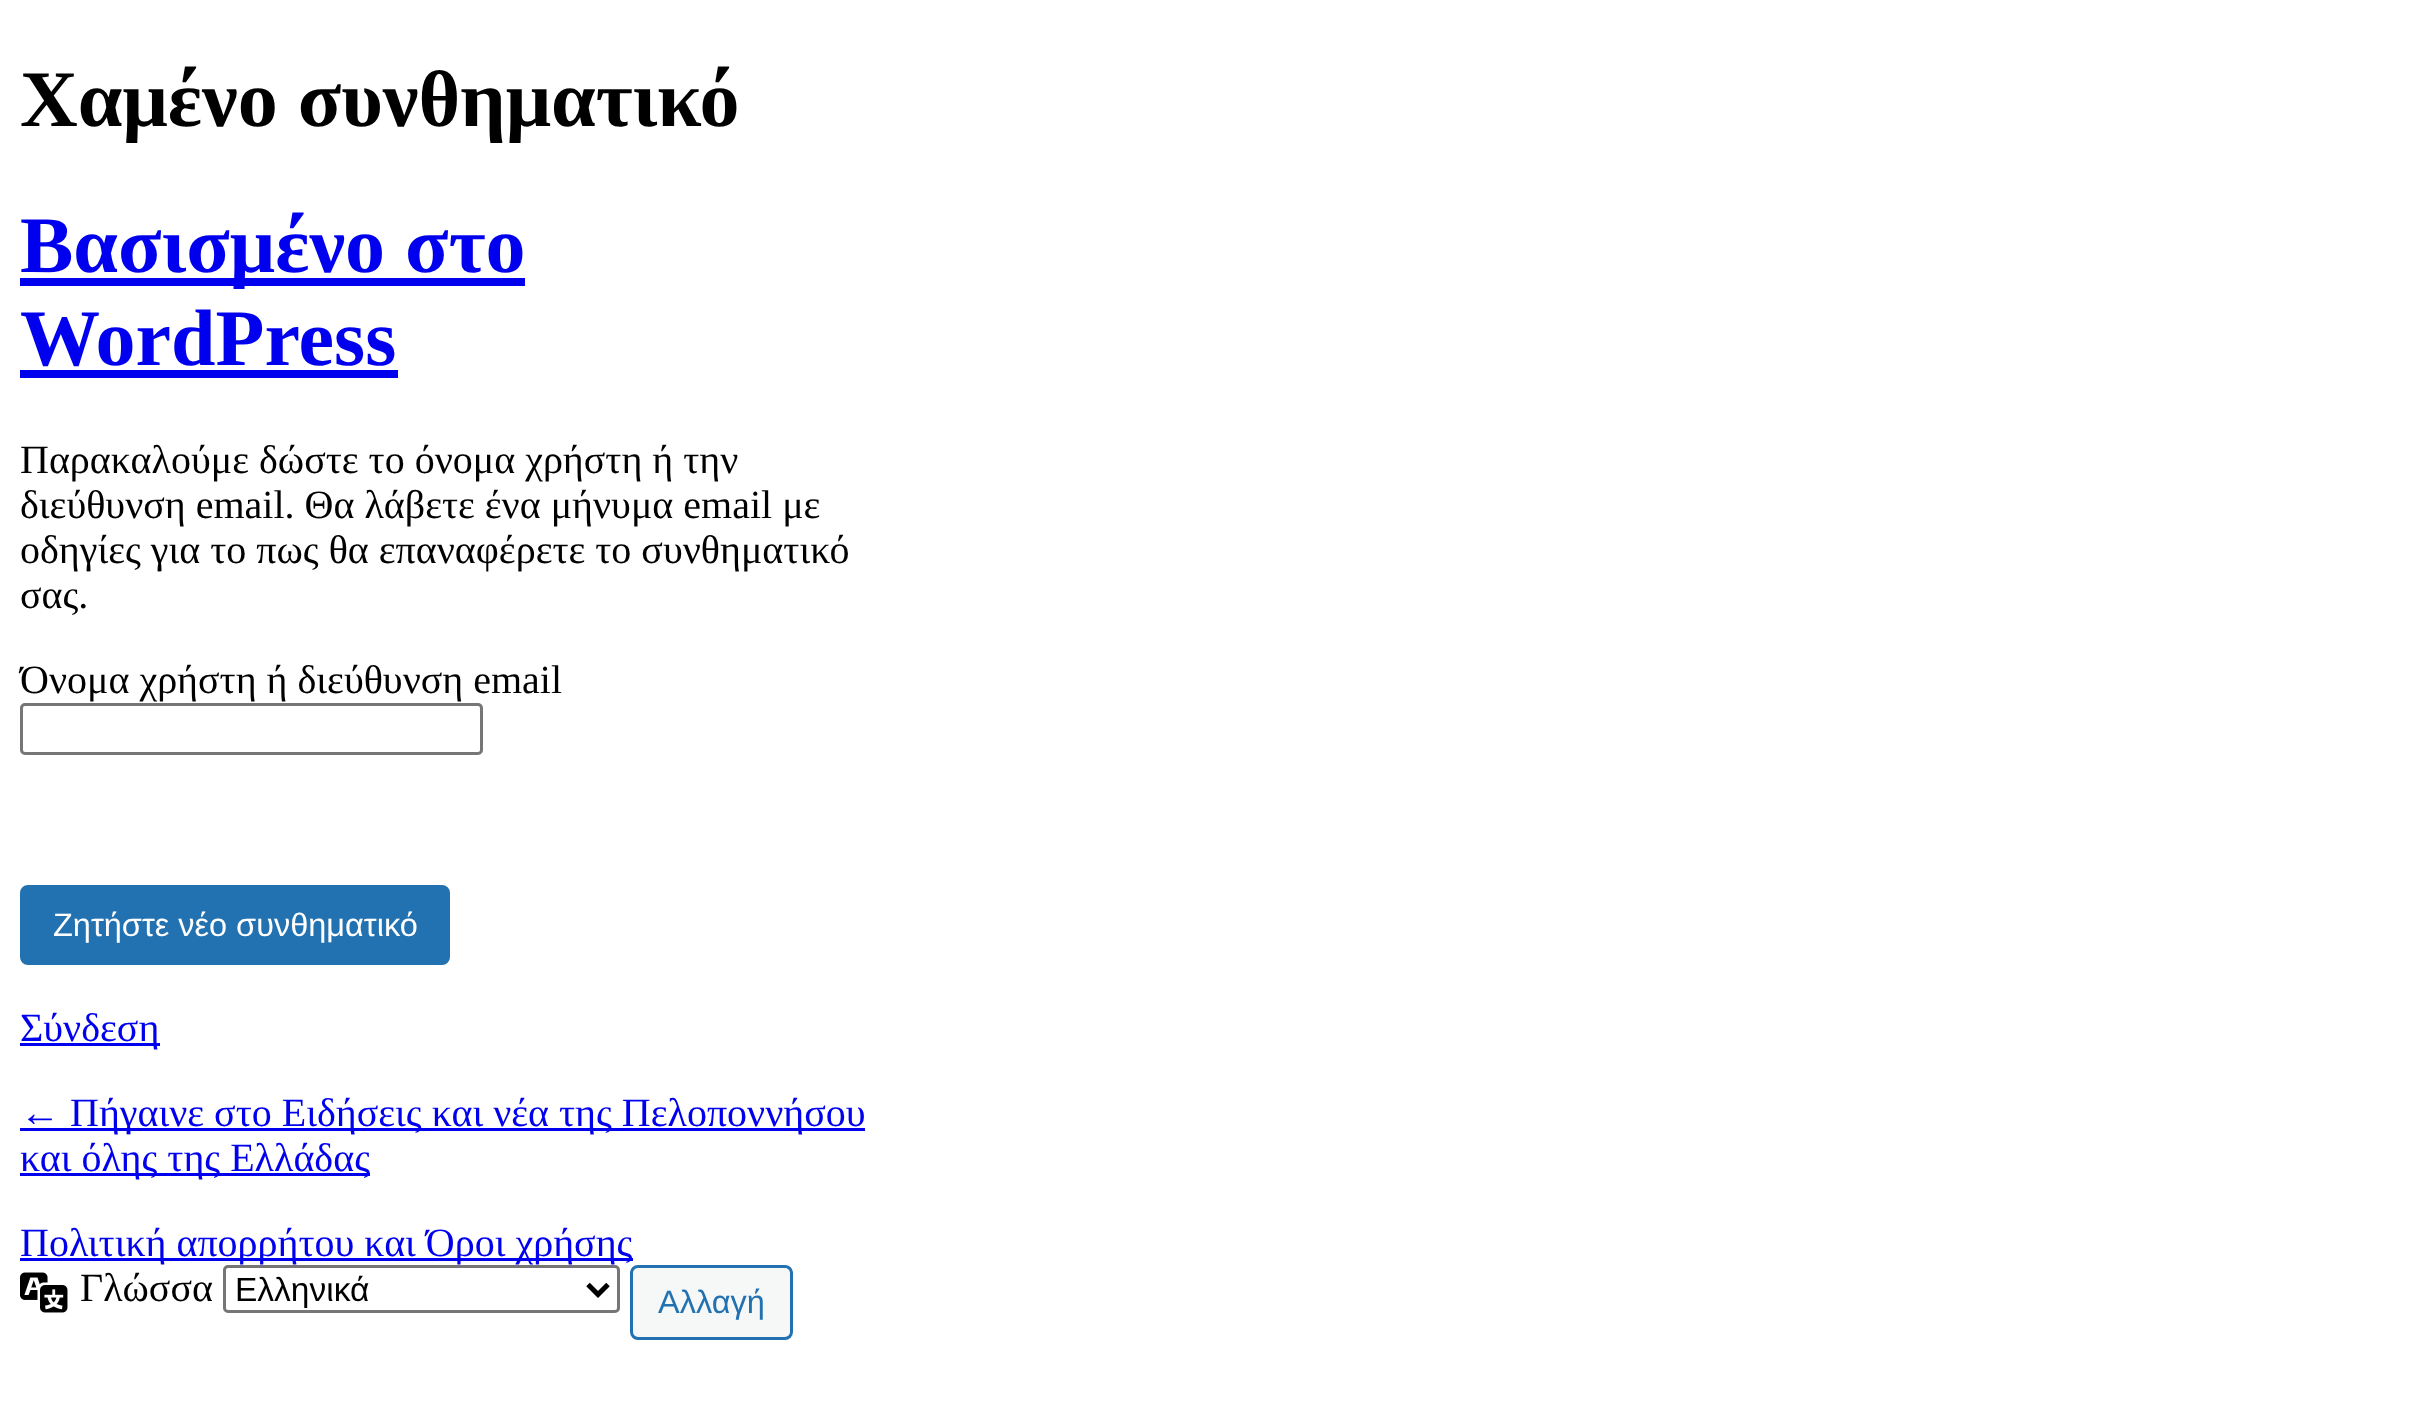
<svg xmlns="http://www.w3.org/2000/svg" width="2413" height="1404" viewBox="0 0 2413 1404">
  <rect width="100%" height="100%" fill="#ffffff"/>
  <text x="20" y="126" font-family="Liberation Serif" font-size="80" font-weight="bold" fill="#000000">Χαμένο συνθηματικό</text>
  <rect x="20" y="278" width="505" height="8" fill="#0000ee"/>
  <text x="20" y="272" font-family="Liberation Serif" font-size="80" font-weight="bold" fill="#0000ee">Βασισμένο στο</text>
  <text x="20" y="365" font-family="Liberation Serif" font-size="80" font-weight="bold" fill="#0000ee">WordPress</text>
  <rect x="20" y="370" width="378" height="8" fill="#0000ee"/>
  <text x="20" y="473" font-family="Liberation Serif" font-size="40" fill="#000000">Παρακαλούμε δώστε το όνομα χρήστη ή την</text>
  <text x="20" y="518" font-family="Liberation Serif" font-size="40" fill="#000000">διεύθυνση email. Θα λάβετε ένα μήνυμα email με</text>
  <text x="20" y="563" font-family="Liberation Serif" font-size="40" fill="#000000">οδηγίες για το πως θα επαναφέρετε το συνθηματικό</text>
  <text x="20" y="608" font-family="Liberation Serif" font-size="40" fill="#000000">σας.</text>
  <text x="20" y="693" font-family="Liberation Serif" font-size="40" fill="#000000">Όνομα χρήστη ή διεύθυνση email</text>
  <rect x="21.5" y="704.5" width="460" height="49" rx="3.5" fill="none" stroke="#767676" stroke-width="3"/>
  <rect x="21.5" y="886.5" width="427" height="77" rx="6.5" fill="#2271b1" stroke="#2271b1" stroke-width="3"/>
  <text x="53" y="936" font-family="Liberation Sans" font-size="32.5" fill="#ffffff">Ζητήστε νέο συνθηματικό</text>
  <rect x="20" y="1043" width="140" height="3" fill="#0000ee"/>
  <text x="20" y="1041" font-family="Liberation Serif" font-size="40" fill="#0000ee">Σύνδεση</text>
  <rect x="20" y="1128" width="845" height="3" fill="#0000ee"/>
  <text x="20" y="1126" font-family="Liberation Serif" font-size="40" fill="#0000ee">← Πήγαινε στο Ειδήσεις και νέα της Πελοποννήσου</text>
  <rect x="20" y="1173" width="350" height="3" fill="#0000ee"/>
  <text x="20" y="1171" font-family="Liberation Serif" font-size="40" fill="#0000ee">και όλης της Ελλάδας</text>
  <rect x="20" y="1258" width="613" height="3" fill="#0000ee"/>
  <text x="20" y="1256" font-family="Liberation Serif" font-size="40" fill="#0000ee">Πολιτική απορρήτου και Όροι χρήσης</text>
  <image x="20" y="1272" width="48" height="41" href="img1.png"/>
  <text x="80" y="1301" font-family="Liberation Serif" font-size="40" fill="#000000">Γλώσσα</text>
  <rect x="224.5" y="1266.5" width="394" height="45" rx="3.5" fill="none" stroke="#767676" stroke-width="3"/>
  <path d="M588 1284.5L598 1294.5L608 1284.5" fill="none" stroke="#000000" stroke-width="5"/>
  <text x="235" y="1301" font-family="Liberation Sans" font-size="33.5" fill="#000000">Ελληνικά</text>
  <rect x="631.5" y="1266.5" width="160" height="72" rx="6.5" fill="#f6f7f7" stroke="#2271b1" stroke-width="3"/>
  <text x="658" y="1313" font-family="Liberation Sans" font-size="32.5" fill="#2271b1">Αλλαγή</text>
</svg>
